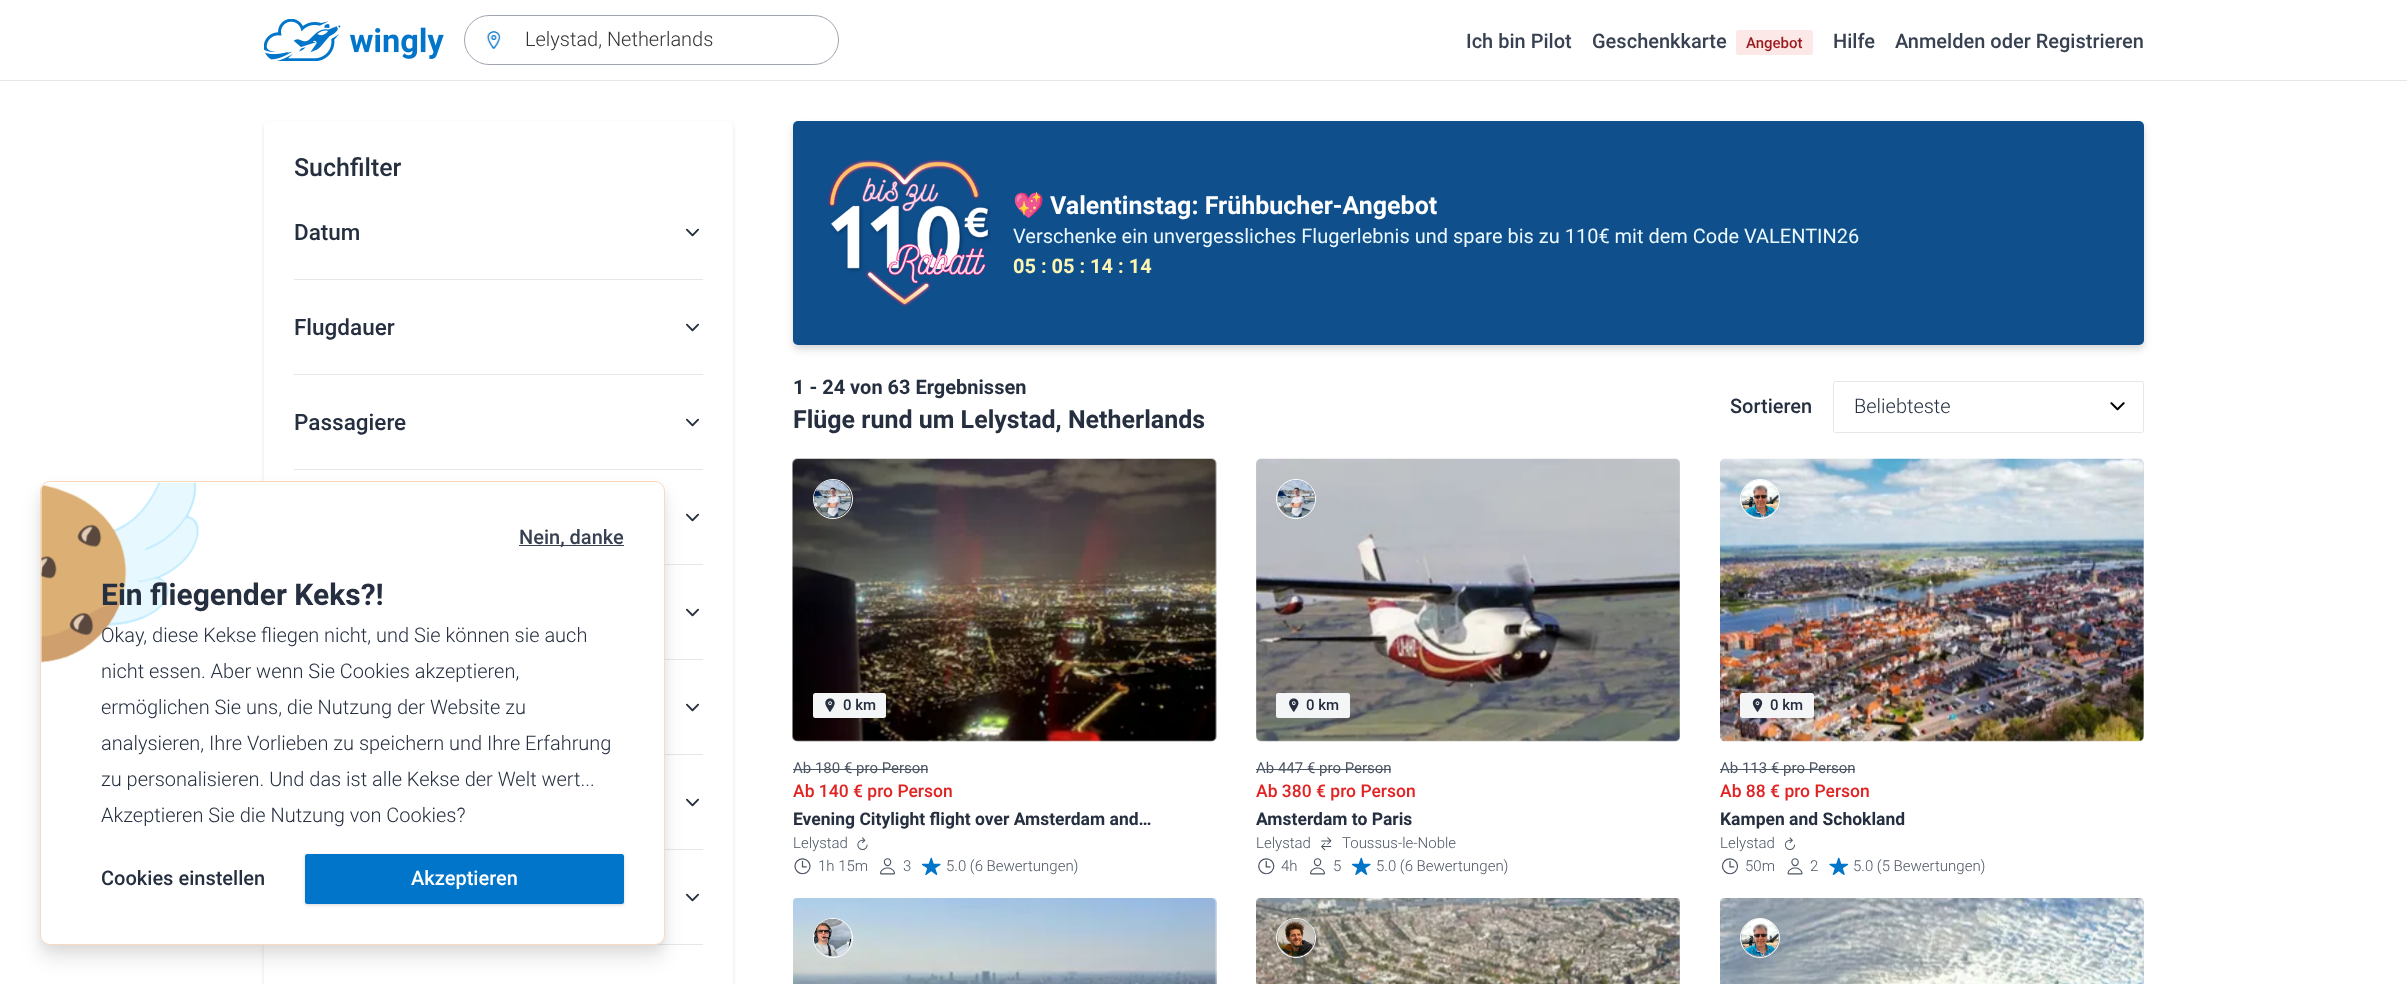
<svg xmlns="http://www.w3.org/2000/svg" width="2407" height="984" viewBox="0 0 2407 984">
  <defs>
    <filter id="blur1" x="-50%" y="-200%" width="200%" height="500%"><feGaussianBlur stdDeviation="2"/></filter>
    <filter id="blur2" x="-50%" y="-200%" width="200%" height="500%"><feGaussianBlur stdDeviation="2.5"/></filter>
    <filter id="blur3" x="-50%" y="-200%" width="200%" height="500%"><feGaussianBlur stdDeviation="4"/></filter>
    <filter id="blur4" x="-50%" y="-200%" width="200%" height="500%"><feGaussianBlur stdDeviation="9.5"/></filter>
    <filter id="blur5" x="-50%" y="-200%" width="200%" height="500%"><feGaussianBlur stdDeviation="1"/></filter>
  </defs>
  <rect width="100%" height="100%" fill="#ffffff"/>
  <rect x="0" y="80" width="2407" height="1" fill="#e5e7eb"/>
  <image x="264" y="19" width="180" height="42" href="img1.png"/>
  <rect x="464.5" y="15.5" width="374" height="49" rx="24.5" fill="none" stroke="#9fa6b2"/>
  <image x="486" y="31" width="15" height="18" href="img2.png"/>
  <text x="525" y="46" font-family="Roboto" font-size="20" font-weight="300" fill="#333333">Lelystad, Netherlands</text>
  <text x="1466" y="48" font-family="Roboto" font-size="20" font-weight="500" fill="#374151">Ich bin Pilot</text>
  <text x="1592" y="48" font-family="Roboto" font-size="20" font-weight="500" fill="#374151">Geschenkkarte</text>
  <rect x="1736" y="30" width="77" height="25" rx="2.5" fill="#fde8e8"/>
  <text x="1746" y="48" font-family="Roboto" font-size="15" font-weight="500" fill="#9b1c1c">Angebot</text>
  <text x="1833" y="48" font-family="Roboto" font-size="20" font-weight="500" fill="#374151">Hilfe</text>
  <text x="1895" y="48" font-family="Roboto" font-size="20" font-weight="500" fill="#374151">Anmelden oder Registrieren</text>
  <rect x="264" y="123" width="469" height="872" rx="5" fill="#000000" fill-opacity="0.1" filter="url(#blur1)"/>
  <rect x="264" y="121" width="469" height="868" rx="5" fill="#ffffff"/>
  <text x="294" y="176" font-family="Roboto" font-size="25" font-weight="500" fill="#252f3f">Suchfilter</text>
  <text x="294" y="240" font-family="Roboto" font-size="22.5" font-weight="500" fill="#252f3f">Datum</text>
  <image x="686" y="228" width="13" height="9" href="img3.png"/>
  <rect x="294" y="279" width="409" height="1" fill="#e5e7eb"/>
  <text x="294" y="335" font-family="Roboto" font-size="22.5" font-weight="500" fill="#252f3f">Flugdauer</text>
  <image x="686" y="323" width="13" height="9" href="img3.png"/>
  <rect x="294" y="374" width="409" height="1" fill="#e5e7eb"/>
  <text x="294" y="430" font-family="Roboto" font-size="22.5" font-weight="500" fill="#252f3f">Passagiere</text>
  <image x="686" y="418" width="13" height="9" href="img3.png"/>
  <rect x="294" y="469" width="409" height="1" fill="#e5e7eb"/>
  <image x="686" y="513" width="13" height="9" href="img3.png"/>
  <rect x="665" y="564" width="38" height="1" fill="#e5e7eb"/>
  <image x="686" y="608" width="13" height="9" href="img3.png"/>
  <rect x="665" y="659" width="38" height="1" fill="#e5e7eb"/>
  <image x="686" y="703" width="13" height="9" href="img3.png"/>
  <rect x="665" y="754" width="38" height="1" fill="#e5e7eb"/>
  <image x="686" y="798" width="13" height="9" href="img3.png"/>
  <rect x="665" y="849" width="38" height="1" fill="#e5e7eb"/>
  <image x="686" y="893" width="13" height="9" href="img3.png"/>
  <rect x="655" y="944" width="48" height="1" fill="#e5e7eb"/>
  <rect x="793" y="124" width="1351" height="224" rx="5" fill="#000000" fill-opacity="0.06" filter="url(#blur2)"/>
  <rect x="793" y="126" width="1351" height="224" rx="5" fill="#000000" fill-opacity="0.1" filter="url(#blur3)"/>
  <rect x="793" y="121" width="1351" height="224" rx="5" fill="#0e4f8c"/>
  <image x="827" y="159" width="164" height="148" href="img4.png"/>
  <text x="1013" y="214" font-family="Noto Color Emoji" font-size="25" font-weight="bold" fill="#ffffff">💖</text>
  <text x="1050" y="214" font-family="Roboto" font-size="25" font-weight="bold" fill="#ffffff">Valentinstag: Frühbucher-Angebot</text>
  <text x="1013" y="243" font-family="Roboto" font-size="20" fill="#ebfaff">Verschenke ein unvergessliches Flugerlebnis und spare bis zu 110€ mit dem Code VALENTIN26</text>
  <text x="1013" y="273" font-family="Roboto" font-size="20" font-weight="bold" fill="#fdf6b2">05 : 05 : 14 : 14</text>
  <text x="793" y="394" font-family="Roboto" font-size="20" font-weight="bold" fill="#252f3f">1 - 24 von 63 Ergebnissen</text>
  <text x="793" y="428" font-family="Roboto" font-size="25" font-weight="bold" fill="#252f3f">Flüge rund um Lelystad, Netherlands</text>
  <text x="1730" y="413" font-family="Roboto" font-size="20" font-weight="500" fill="#252f3f">Sortieren</text>
  <image x="2110" y="402" width="15" height="9" href="img5.png"/>
  <rect x="1833.5" y="381.5" width="310" height="51" rx="2" fill="none" stroke="#e5e7eb"/>
  <text x="1854" y="413" font-family="Roboto" font-size="20" font-weight="300" fill="#252f3f">Beliebteste</text>
  <image x="792" y="458" width="425" height="284" href="img6.png"/>
  <circle cx="833" cy="499" r="19.5" fill="none" stroke="#ffffff"/>
  <image x="813" y="480" width="39" height="38" href="img7.png"/>
  <rect x="813" y="693" width="73" height="25" rx="2.5" fill="#f4f5f7"/>
  <image x="825" y="698" width="10" height="14" href="img8.png"/>
  <text x="843" y="710" font-family="Roboto" font-size="15" font-weight="500" fill="#252f3f">0 km</text>
  <text x="793" y="773" font-family="Roboto" font-size="15" fill="#4b5563">Ab 180 € pro Person</text>
  <rect x="793" y="769" width="135" height="1" fill="#4b5563"/>
  <text x="793" y="797" font-family="Roboto" font-size="17.5" font-weight="500" fill="#e02424">Ab 140 € pro Person</text>
  <text x="793" y="825" font-family="Roboto" font-size="17.5" font-weight="bold" fill="#252f3f">Evening Citylight flight over Amsterdam and…</text>
  <text x="793" y="848" font-family="Roboto" font-size="15" font-weight="300" fill="#4b5563">Lelystad</text>
  <image x="857" y="837" width="11" height="13" href="img9.png"/>
  <image x="794" y="858" width="17" height="17" href="img10.png"/>
  <text x="818" y="871" font-family="Roboto" font-size="15" font-weight="300" fill="#4b5563">1h 15m</text>
  <image x="880" y="858" width="15" height="17" href="img11.png"/>
  <text x="903" y="871" font-family="Roboto" font-size="15" font-weight="300" fill="#4b5563">3</text>
  <image x="921" y="857" width="20" height="18" href="img12.png"/>
  <text x="946" y="871" font-family="Roboto" font-size="15" font-weight="300" fill="#4b5563">5.0 (6 Bewertungen)</text>
  <rect x="1256" y="459" width="424" height="282" rx="5" fill="#d2d6dc"/>
  <image x="1256" y="458" width="424" height="284" href="img13.png"/>
  <circle cx="1296" cy="499" r="19.5" fill="none" stroke="#ffffff"/>
  <image x="1277" y="480" width="38" height="38" href="img14.png"/>
  <rect x="1276" y="693" width="74" height="25" rx="2.5" fill="#f4f5f7"/>
  <image x="1289" y="698" width="10" height="14" href="img15.png"/>
  <text x="1306" y="710" font-family="Roboto" font-size="15" font-weight="500" fill="#252f3f">0 km</text>
  <text x="1256" y="773" font-family="Roboto" font-size="15" fill="#4b5563">Ab 447 € pro Person</text>
  <rect x="1256" y="769" width="135" height="1" fill="#4b5563"/>
  <text x="1256" y="797" font-family="Roboto" font-size="17.5" font-weight="500" fill="#e02424">Ab 380 € pro Person</text>
  <text x="1256" y="825" font-family="Roboto" font-size="17.5" font-weight="bold" fill="#252f3f">Amsterdam to Paris</text>
  <text x="1256" y="848" font-family="Roboto" font-size="15" font-weight="300" fill="#4b5563">Lelystad</text>
  <image x="1321" y="837" width="11" height="14" href="img16.png"/>
  <text x="1342" y="848" font-family="Roboto" font-size="15" font-weight="300" fill="#4b5563">Toussus-le-Noble</text>
  <image x="1258" y="858" width="17" height="17" href="img17.png"/>
  <text x="1281" y="871" font-family="Roboto" font-size="15" font-weight="300" fill="#4b5563">4h</text>
  <image x="1310" y="858" width="15" height="17" href="img18.png"/>
  <text x="1333" y="871" font-family="Roboto" font-size="15" font-weight="300" fill="#4b5563">5</text>
  <image x="1351" y="857" width="20" height="18" href="img12.png"/>
  <text x="1376" y="871" font-family="Roboto" font-size="15" font-weight="300" fill="#4b5563">5.0 (6 Bewertungen)</text>
  <rect x="1720" y="459" width="424" height="282" rx="5" fill="#d2d6dc"/>
  <image x="1720" y="458" width="424" height="284" href="img19.png"/>
  <circle cx="1760" cy="499" r="19.5" fill="none" stroke="#ffffff"/>
  <image x="1741" y="480" width="38" height="38" href="img20.png"/>
  <rect x="1740" y="693" width="74" height="25" rx="2.5" fill="#f4f5f7"/>
  <image x="1752" y="698" width="11" height="14" href="img21.png"/>
  <text x="1770" y="710" font-family="Roboto" font-size="15" font-weight="500" fill="#252f3f">0 km</text>
  <text x="1720" y="773" font-family="Roboto" font-size="15" fill="#4b5563">Ab 113 € pro Person</text>
  <rect x="1720" y="769" width="135" height="1" fill="#4b5563"/>
  <text x="1720" y="797" font-family="Roboto" font-size="17.5" font-weight="500" fill="#e02424">Ab 88 € pro Person</text>
  <text x="1720" y="825" font-family="Roboto" font-size="17.5" font-weight="bold" fill="#252f3f">Kampen and Schokland</text>
  <text x="1720" y="848" font-family="Roboto" font-size="15" font-weight="300" fill="#4b5563">Lelystad</text>
  <image x="1784" y="837" width="12" height="13" href="img22.png"/>
  <image x="1721" y="858" width="18" height="17" href="img23.png"/>
  <text x="1745" y="871" font-family="Roboto" font-size="15" font-weight="300" fill="#4b5563">50m</text>
  <image x="1787" y="858" width="16" height="17" href="img24.png"/>
  <text x="1810" y="871" font-family="Roboto" font-size="15" font-weight="300" fill="#4b5563">2</text>
  <image x="1829" y="857" width="20" height="18" href="img25.png"/>
  <text x="1853" y="871" font-family="Roboto" font-size="15" font-weight="300" fill="#4b5563">5.0 (5 Bewertungen)</text>
  <image x="793" y="898" width="424" height="86" href="img26.png"/>
  <circle cx="833" cy="938" r="19.5" fill="none" stroke="#ffffff"/>
  <image x="813" y="918" width="38" height="39" href="img27.png"/>
  <rect x="1256" y="898" width="424" height="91" rx="5" fill="#d2d6dc"/>
  <image x="1256" y="898" width="424" height="86" href="img28.png"/>
  <circle cx="1296" cy="938" r="19.5" fill="none" stroke="#ffffff"/>
  <image x="1277" y="918" width="38" height="39" href="img29.png"/>
  <rect x="1720" y="898" width="424" height="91" rx="5" fill="#d2d6dc"/>
  <image x="1720" y="898" width="424" height="86" href="img30.png"/>
  <circle cx="1760" cy="938" r="19.5" fill="none" stroke="#ffffff"/>
  <image x="1741" y="919" width="38" height="38" href="img31.png"/>
  <rect x="40" y="494" width="625" height="464" rx="10" fill="#000000" fill-opacity="0.1" filter="url(#blur4)"/>
  <rect x="40" y="486" width="625" height="464" rx="10" fill="#000000" fill-opacity="0.05" filter="url(#blur3)"/>
  <rect x="40.5" y="481.5" width="624" height="463" rx="9.5" fill="#ffffff" stroke="#fcd9bd"/>
  <image x="41" y="482" width="159" height="181" href="img32.png"/>
  <rect x="519" y="545" width="105" height="1" fill="#374151"/>
  <text x="519" y="544" font-family="Roboto" font-size="20" font-weight="500" fill="#374151">Nein, danke</text>
  <text x="101" y="605" font-family="Roboto" font-size="30" font-weight="bold" fill="#252f3f">Ein fliegender Keks?!</text>
  <text x="101" y="642" font-family="Roboto" font-size="20" font-weight="300" fill="#252f3f">Okay, diese Kekse fliegen nicht, und Sie können sie auch</text>
  <text x="101" y="678" font-family="Roboto" font-size="20" font-weight="300" fill="#252f3f">nicht essen. Aber wenn Sie Cookies akzeptieren,</text>
  <text x="101" y="714" font-family="Roboto" font-size="20" font-weight="300" fill="#252f3f">ermöglichen Sie uns, die Nutzung der Website zu</text>
  <text x="101" y="750" font-family="Roboto" font-size="20" font-weight="300" fill="#252f3f">analysieren, Ihre Vorlieben zu speichern und Ihre Erfahrung</text>
  <text x="101" y="786" font-family="Roboto" font-size="20" font-weight="300" fill="#252f3f">zu personalisieren. Und das ist alle Kekse der Welt wert...</text>
  <text x="101" y="822" font-family="Roboto" font-size="20" font-weight="300" fill="#252f3f">Akzeptieren Sie die Nutzung von Cookies?</text>
  <text x="101" y="885" font-family="Roboto" font-size="20" font-weight="500" fill="#252f3f">Cookies einstellen</text>
  <rect x="305" y="855" width="319" height="50" rx="2.5" fill="#000000" fill-opacity="0.06" filter="url(#blur5)"/>
  <rect x="305" y="855" width="319" height="50" rx="2.5" fill="#000000" fill-opacity="0.1" filter="url(#blur1)"/>
  <rect x="305" y="854" width="319" height="50" rx="2.5" fill="#0075c9"/>
  <text x="411" y="885" font-family="Roboto" font-size="20" font-weight="500" fill="#ffffff">Akzeptieren</text>
</svg>
